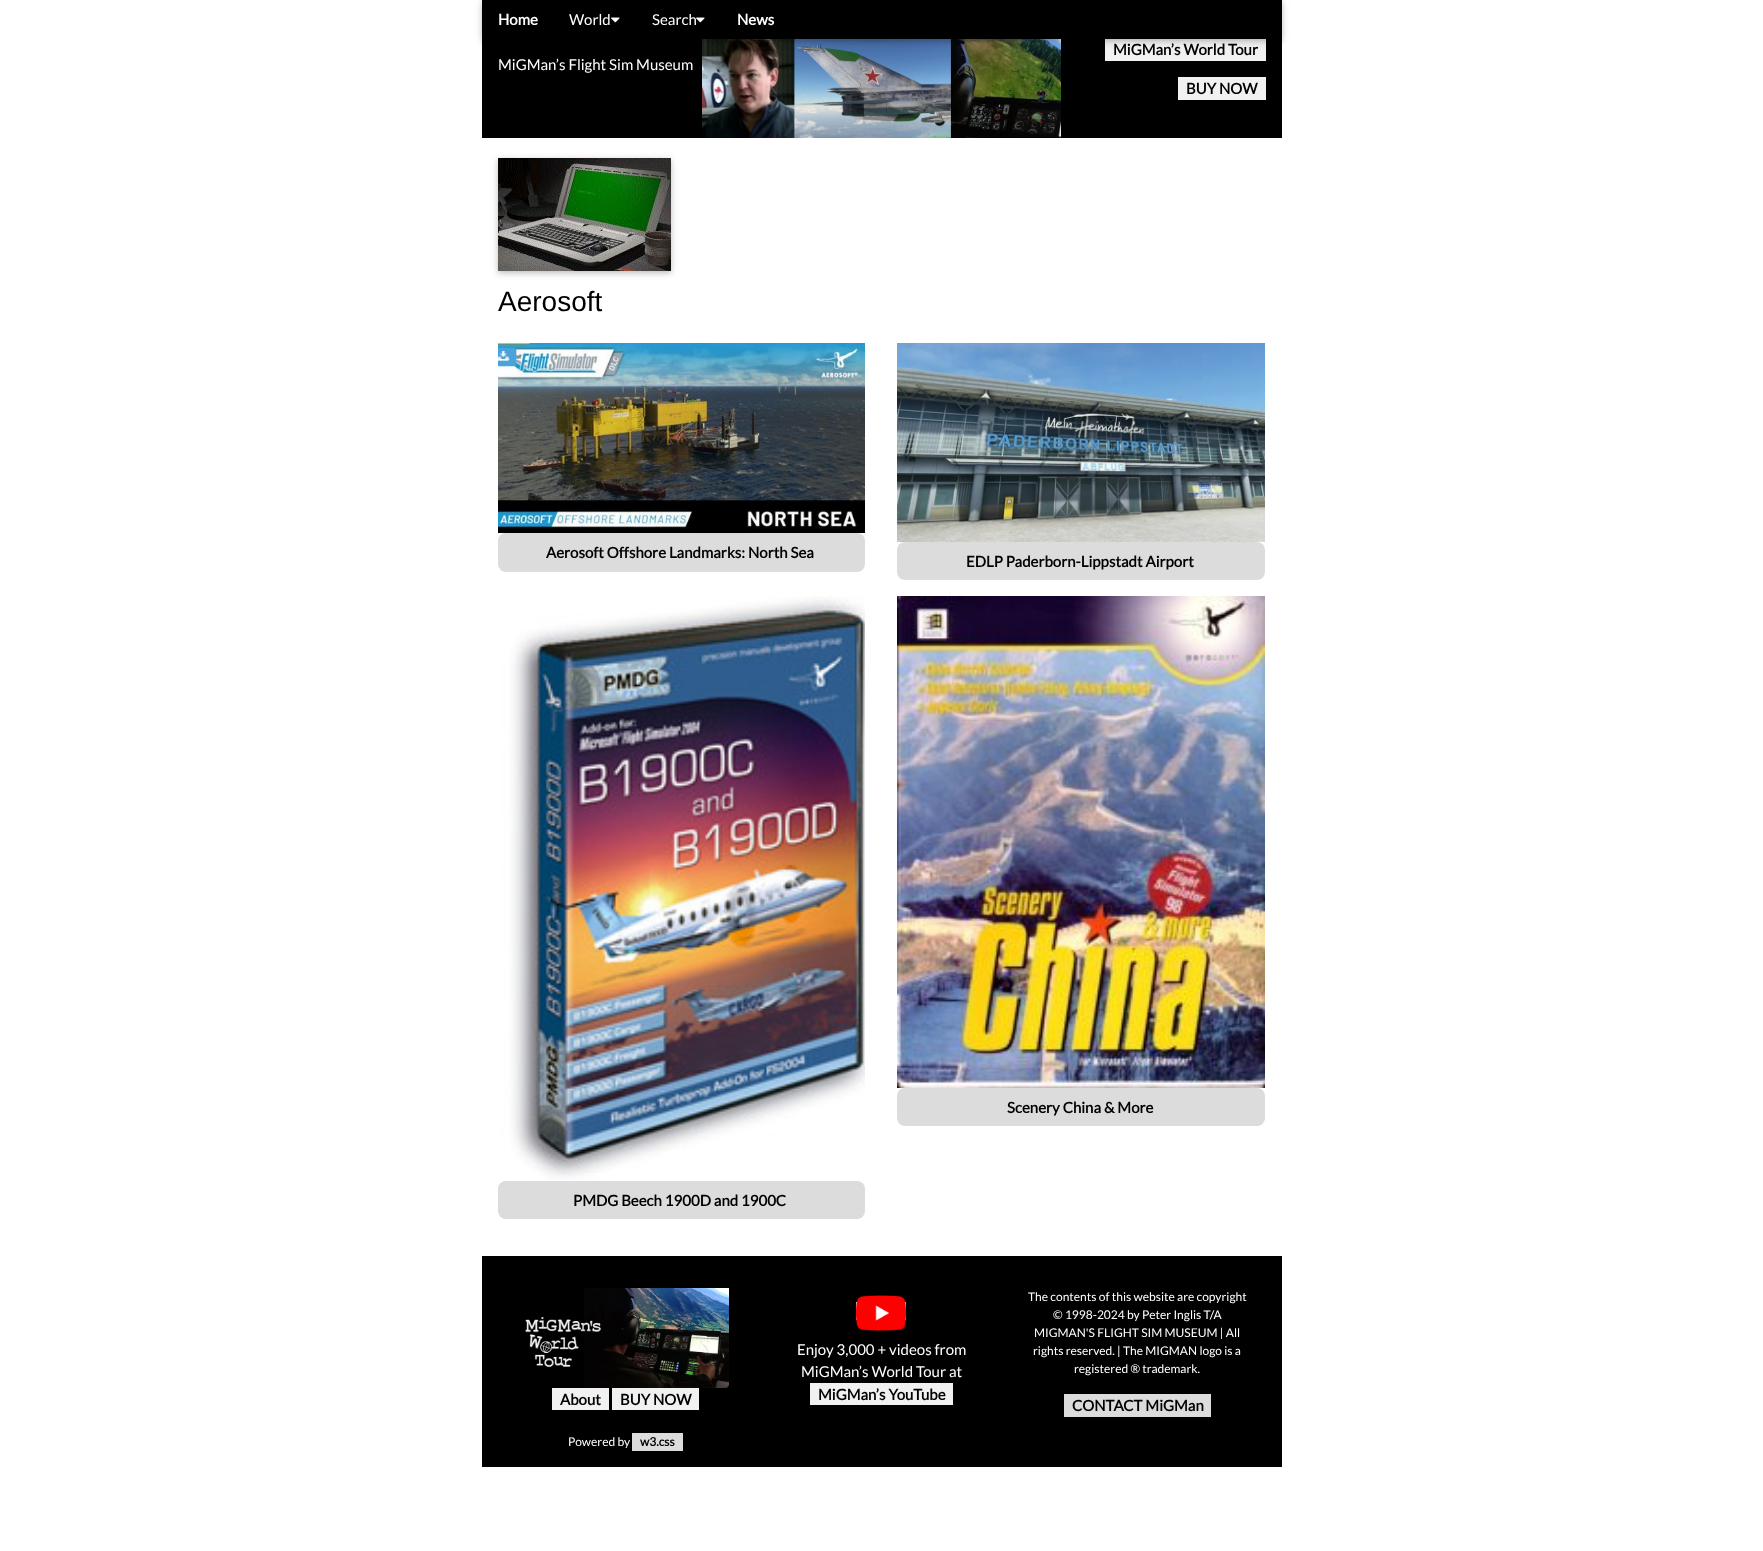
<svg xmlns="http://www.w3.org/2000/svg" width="1763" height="1551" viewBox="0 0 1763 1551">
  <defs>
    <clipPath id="clip1"><path d="M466 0H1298V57H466ZM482 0H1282V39H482Z" clip-rule="evenodd"/></clipPath>
    <filter id="blur1" x="-50%" y="-200%" width="200%" height="500%"><feGaussianBlur stdDeviation="5"/></filter>
    <clipPath id="clip2"><path d="M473 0H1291V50H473ZM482 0H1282V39H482Z" clip-rule="evenodd"/></clipPath>
    <filter id="blur2" x="-50%" y="-200%" width="200%" height="500%"><feGaussianBlur stdDeviation="2.5"/></filter>
  </defs>
  <rect width="100%" height="100%" fill="#ffffff"/>
  <rect x="482" y="0" width="800" height="138" fill="#000000"/>
  <image x="702" y="39" width="359" height="99" href="img2.png"/>
  <rect x="1105" y="39" width="161" height="22" fill="#f1f1f1"/>
  <g clip-path="url(#clip1)">
    <rect x="482" y="2" width="800" height="39" fill="#000000" fill-opacity="0.12" filter="url(#blur1)"/>
  </g>
  <g clip-path="url(#clip2)">
    <rect x="482" y="2" width="800" height="39" fill="#000000" fill-opacity="0.16" filter="url(#blur2)"/>
  </g>
  <text x="498" y="25" font-family="Lato" font-size="15" font-weight="bold" fill="#ffffff">Home</text>
  <text x="569" y="25" font-family="Lato" font-size="15" fill="#ffffff">World</text>
  <image x="611" y="17" width="9" height="6" href="img1.png"/>
  <text x="652" y="25" font-family="Lato" font-size="15" fill="#ffffff">Search</text>
  <image x="696" y="17" width="9" height="6" href="img1.png"/>
  <text x="737" y="25" font-family="Lato" font-size="15" font-weight="bold" fill="#ffffff">News</text>
  <text x="1113" y="55" font-family="Lato" font-size="15" font-weight="bold" fill="#000000">MiGMan’s World Tour</text>
  <text x="498" y="70" font-family="Lato" font-size="15" fill="#ffffff">MiGMan’s Flight Sim Museum</text>
  <rect x="1178" y="77" width="88" height="23" fill="#f1f1f1"/>
  <text x="1186" y="94" font-family="Lato" font-size="15" font-weight="bold" fill="#000000">BUY NOW</text>
  <rect x="498" y="160" width="173" height="113" fill="#000000" fill-opacity="0.12" filter="url(#blur1)"/>
  <rect x="498" y="160" width="173" height="113" fill="#000000" fill-opacity="0.16" filter="url(#blur2)"/>
  <image x="498" y="158" width="173" height="113" href="img3.png"/>
  <text x="498" y="311" font-family="Liberation Sans" font-size="28" fill="#000000">Aerosoft</text>
  <image x="498" y="343" width="367" height="190" href="img4.png"/>
  <rect x="498" y="533" width="367" height="39" rx="8" fill="#dcdcdc"/>
  <text x="546" y="558" font-family="Lato" font-size="15" font-weight="bold" fill="#000000">Aerosoft Offshore Landmarks: North Sea</text>
  <image x="897" y="343" width="368" height="199" href="img5.png"/>
  <rect x="897" y="542" width="368" height="38" rx="8" fill="#dcdcdc"/>
  <text x="966" y="567" font-family="Lato" font-size="15" font-weight="bold" fill="#000000">EDLP Paderborn-Lippstadt Airport</text>
  <image x="897" y="596" width="368" height="492" href="img6.png"/>
  <rect x="897" y="1088" width="368" height="38" rx="8" fill="#dcdcdc"/>
  <text x="1007" y="1113" font-family="Lato" font-size="15" font-weight="bold" fill="#000000">Scenery China &amp; More</text>
  <image x="498" y="596" width="367" height="584" href="img7.png"/>
  <rect x="498" y="1181" width="367" height="38" rx="8" fill="#dcdcdc"/>
  <text x="573" y="1206" font-family="Lato" font-size="15" font-weight="bold" fill="#000000">PMDG Beech 1900D and 1900C</text>
  <rect x="482" y="1256" width="800" height="211" fill="#000000"/>
  <image x="522" y="1288" width="207" height="100" href="img8.png"/>
  <rect x="552" y="1388" width="57" height="22" fill="#f1f1f1"/>
  <text x="560" y="1405" font-family="Lato" font-size="15" font-weight="bold" fill="#000000">About</text>
  <rect x="612" y="1388" width="87" height="22" fill="#f1f1f1"/>
  <text x="620" y="1405" font-family="Lato" font-size="15" font-weight="bold" fill="#000000">BUY NOW</text>
  <rect x="856" y="1302" width="50" height="18" fill="#dcdcdc"/>
  <image x="856" y="1295" width="50" height="36" href="img9.png"/>
  <text x="797" y="1355" font-family="Lato" font-size="15" fill="#ffffff">Enjoy 3,000 + videos from</text>
  <text x="801" y="1377" font-family="Lato" font-size="15" fill="#ffffff">MiGMan’s World Tour at</text>
  <rect x="810" y="1383" width="143" height="22" fill="#f1f1f1"/>
  <text x="818" y="1400" font-family="Lato" font-size="15" font-weight="bold" fill="#000000">MiGMan’s YouTube</text>
  <text x="1028" y="1301" font-family="Lato" font-size="12" fill="#ffffff">The contents of this website are copyright</text>
  <text x="1053" y="1319" font-family="Lato" font-size="12" fill="#ffffff">© 1998-2024 by Peter Inglis T/A</text>
  <text x="1034" y="1337" font-family="Lato" font-size="12" fill="#ffffff">MIGMAN'S FLIGHT SIM MUSEUM | All</text>
  <text x="1033" y="1355" font-family="Lato" font-size="12" fill="#ffffff">rights reserved. | The MIGMAN logo is a</text>
  <text x="1074" y="1373" font-family="Lato" font-size="12" fill="#ffffff">registered ® trademark.</text>
  <rect x="1064" y="1394" width="147" height="23" fill="#dcdcdc"/>
  <text x="1072" y="1411" font-family="Lato" font-size="15" font-weight="bold" fill="#000000">CONTACT MiGMan</text>
  <text x="568" y="1446" font-family="Lato" font-size="12" fill="#ffffff">Powered by</text>
  <rect x="632" y="1433" width="51" height="18" fill="#dcdcdc"/>
  <text x="640" y="1446" font-family="Lato" font-size="12" font-weight="bold" fill="#000000">w3.css</text>
</svg>
